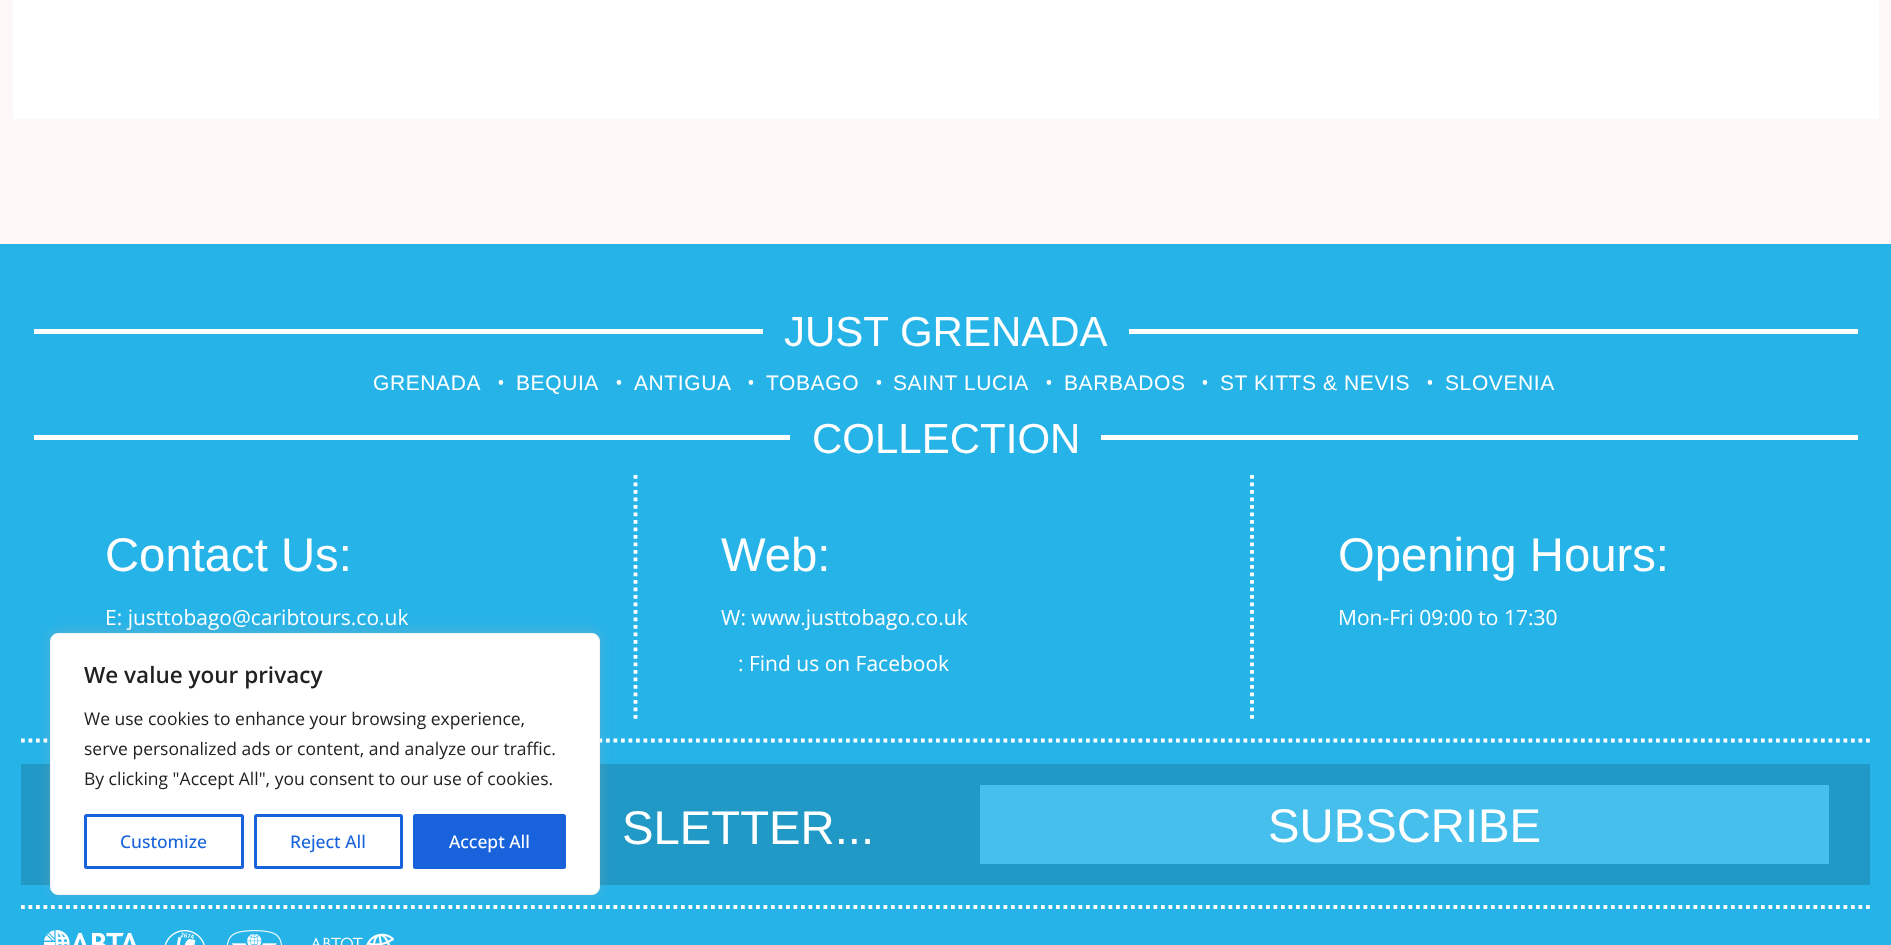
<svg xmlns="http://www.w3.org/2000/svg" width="1891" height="945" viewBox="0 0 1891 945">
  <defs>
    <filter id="blur1" x="-50%" y="-200%" width="200%" height="500%"><feGaussianBlur stdDeviation="6"/></filter>
  </defs>
  <rect width="100%" height="100%" fill="#fdf8f7"/>
  <rect x="13" y="0" width="1866" height="119" fill="#ffffff"/>
  <rect x="0" y="244" width="1891" height="701" fill="#26b3e8"/>
  <rect x="34" y="329" width="1824" height="5" fill="#ffffff"/>
  <rect x="763" y="329" width="366" height="5" fill="#26b3e8"/>
  <text x="784" y="346" font-family="Liberation Sans" font-size="42" fill="#ffffff">JUST GRENADA</text>
  <text x="373" y="390" font-family="Liberation Sans" font-size="21" letter-spacing="0.6" fill="#ffffff">GRENADA</text>
  <text x="497" y="390" font-family="Open Sans" font-size="21" fill="#ffffff">•</text>
  <text x="516" y="390" font-family="Liberation Sans" font-size="21" letter-spacing="0.6" fill="#ffffff">BEQUIA</text>
  <text x="615" y="390" font-family="Open Sans" font-size="21" fill="#ffffff">•</text>
  <text x="634" y="390" font-family="Liberation Sans" font-size="21" letter-spacing="0.6" fill="#ffffff">ANTIGUA</text>
  <text x="747" y="390" font-family="Open Sans" font-size="21" fill="#ffffff">•</text>
  <text x="766" y="390" font-family="Liberation Sans" font-size="21" letter-spacing="0.6" fill="#ffffff">TOBAGO</text>
  <text x="875" y="390" font-family="Open Sans" font-size="21" fill="#ffffff">•</text>
  <text x="893" y="390" font-family="Liberation Sans" font-size="21" letter-spacing="0.6" fill="#ffffff">SAINT LUCIA</text>
  <text x="1045" y="390" font-family="Open Sans" font-size="21" fill="#ffffff">•</text>
  <text x="1064" y="390" font-family="Liberation Sans" font-size="21" letter-spacing="0.6" fill="#ffffff">BARBADOS</text>
  <text x="1201" y="390" font-family="Open Sans" font-size="21" fill="#ffffff">•</text>
  <text x="1220" y="390" font-family="Liberation Sans" font-size="21" letter-spacing="0.6" fill="#ffffff">ST KITTS &amp; NEVIS</text>
  <text x="1426" y="390" font-family="Open Sans" font-size="21" fill="#ffffff">•</text>
  <text x="1445" y="390" font-family="Liberation Sans" font-size="21" letter-spacing="0.6" fill="#ffffff">SLOVENIA</text>
  <rect x="34" y="435" width="1824" height="5" fill="#ffffff"/>
  <rect x="790" y="435" width="311" height="5" fill="#26b3e8"/>
  <text x="812" y="453" font-family="Liberation Sans" font-size="42" fill="#ffffff">COLLECTION</text>
  <path d="M635.5 475V719" fill="none" stroke="#ffffff" stroke-width="3.8" stroke-dasharray="3.75 3.75"/>
  <text x="105" y="571" font-family="Liberation Sans" font-size="47.25" fill="#ffffff">Contact Us:</text>
  <text x="105" y="625" font-family="Open Sans" font-size="21" fill="#ffffff">E: justtobago@caribtours.co.uk</text>
  <path d="M1252 475V719" fill="none" stroke="#ffffff" stroke-width="3.8" stroke-dasharray="3.75 3.75"/>
  <text x="721" y="571" font-family="Liberation Sans" font-size="47.25" fill="#ffffff">Web:</text>
  <text x="721" y="625" font-family="Open Sans" font-size="21" fill="#ffffff">W: www.justtobago.co.uk</text>
  <text x="738" y="671" font-family="Open Sans" font-size="21" fill="#ffffff">: Find us on Facebook</text>
  <text x="1338" y="571" font-family="Liberation Sans" font-size="47.25" fill="#ffffff">Opening Hours:</text>
  <text x="1338" y="625" font-family="Open Sans" font-size="21" fill="#ffffff">Mon-Fri 09:00 to 17:30</text>
  <path d="M21 740.5H1870" fill="none" stroke="#ffffff" stroke-width="3.8" stroke-dasharray="3.75 3.75"/>
  <path d="M21 907H1870" fill="none" stroke="#ffffff" stroke-width="3.8" stroke-dasharray="3.75 3.75"/>
  <rect x="21" y="764" width="1849" height="121" fill="#2199c6"/>
  <text x="622" y="844" font-family="Liberation Sans" font-size="47.25" fill="#ffffff">SLETTER...</text>
  <rect x="980" y="785" width="849" height="79" fill="#47bfec"/>
  <text x="1268" y="842" font-family="Liberation Sans" font-size="47.25" fill="#ffffff">SUBSCRIBE</text>
  <image x="44" y="930" width="92" height="15" href="img1.png"/>
  <image x="164" y="930" width="41" height="15" href="img2.png"/>
  <image x="226" y="930" width="56" height="15" href="img3.png"/>
  <image x="312" y="933" width="82" height="12" href="img4.png"/>
  <rect x="50" y="631" width="550" height="263" rx="8" fill="#acabab" fill-opacity="0.3" filter="url(#blur1)"/>
  <rect x="50.5" y="633.5" width="549" height="261" rx="7.5" fill="#ffffff" stroke="#f4f4f4"/>
  <text x="84" y="683" font-family="Open Sans" font-size="22.5" font-weight="600" fill="#212121">We value your privacy</text>
  <text x="84" y="725" font-family="Open Sans" font-size="17.5" fill="#212121">We use cookies to enhance your browsing experience,</text>
  <text x="84" y="755" font-family="Open Sans" font-size="17.5" fill="#212121">serve personalized ads or content, and analyze our traffic.</text>
  <text x="84" y="785" font-family="Open Sans" font-size="17.5" fill="#212121">By clicking "Accept All", you consent to our use of cookies.</text>
  <rect x="85.5" y="815.5" width="157" height="52" rx="1" fill="none" stroke="#1863dc" stroke-width="3"/>
  <text x="120" y="848" font-family="Open Sans" font-size="17.5" font-weight="500" fill="#1863dc">Customize</text>
  <rect x="255.5" y="815.5" width="146" height="52" rx="1" fill="none" stroke="#1863dc" stroke-width="3"/>
  <text x="290" y="848" font-family="Open Sans" font-size="17.5" font-weight="500" fill="#1863dc">Reject All</text>
  <rect x="414.5" y="815.5" width="150" height="52" rx="1" fill="#1863dc" stroke="#1863dc" stroke-width="3"/>
  <text x="449" y="848" font-family="Open Sans" font-size="17.5" font-weight="500" fill="#ffffff">Accept All</text>
</svg>
